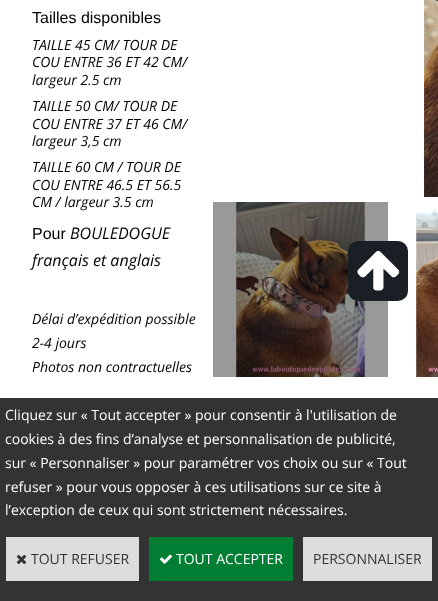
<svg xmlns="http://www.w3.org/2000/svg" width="438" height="601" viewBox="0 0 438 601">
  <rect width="100%" height="100%" fill="#ffffff"/>
  <text x="32" y="23" font-family="Liberation Sans" font-size="16" fill="#000000">Tailles disponibles</text>
  <text x="32" y="50" font-family="Open Sans" font-size="14" font-style="italic" fill="#000000">TAILLE 45 CM/ TOUR DE</text>
  <text x="32" y="67" font-family="Open Sans" font-size="14" font-style="italic" fill="#000000">COU ENTRE 36 ET 42 CM/</text>
  <text x="32" y="85" font-family="Open Sans" font-size="14" font-style="italic" fill="#000000">largeur 2.5 cm</text>
  <text x="32" y="111" font-family="Open Sans" font-size="14" font-style="italic" fill="#000000">TAILLE 50 CM/ TOUR DE</text>
  <text x="32" y="129" font-family="Open Sans" font-size="14" font-style="italic" fill="#000000">COU ENTRE 37 ET 46 CM/</text>
  <text x="32" y="146" font-family="Open Sans" font-size="14" font-style="italic" fill="#000000">largeur 3,5 cm</text>
  <text x="32" y="172" font-family="Open Sans" font-size="14" font-style="italic" fill="#000000">TAILLE 60 CM / TOUR DE</text>
  <text x="32" y="190" font-family="Open Sans" font-size="14" font-style="italic" fill="#000000">COU ENTRE 46.5 ET 56.5</text>
  <text x="32" y="207" font-family="Open Sans" font-size="14" font-style="italic" fill="#000000">CM / largeur 3.5 cm</text>
  <text x="32" y="239" font-family="Liberation Sans" font-size="16" fill="#000000">Pour</text>
  <text x="70" y="239" font-family="Open Sans" font-size="16" font-style="italic" fill="#000000">BOULEDOGUE</text>
  <text x="32" y="266" font-family="Open Sans" font-size="16" font-style="italic" fill="#000000">français et anglais</text>
  <text x="32" y="324" font-family="Open Sans" font-size="14" font-style="italic" fill="#000000">Délai d’expédition possible</text>
  <text x="32" y="348" font-family="Open Sans" font-size="14" font-style="italic" fill="#000000">2-4 jours</text>
  <text x="32" y="372" font-family="Open Sans" font-size="14" font-style="italic" fill="#000000">Photos non contractuelles</text>
  <image x="423" y="0" width="15" height="197" href="img1.png"/>
  <image x="213" y="202" width="175" height="175" href="img2.png"/>
  <image x="416" y="208" width="22" height="169" href="img3.png"/>
  <rect x="348" y="241" width="60" height="60" rx="10" fill="#1a1f26"/>
  <image x="357" y="251" width="43" height="40" href="img4.png"/>
  <rect x="0" y="398" width="438" height="203" fill="#333333"/>
  <text x="5" y="420" font-family="Open Sans" font-size="14" fill="#ffffff">Cliquez sur « Tout accepter » pour consentir à l'utilisation de</text>
  <text x="5" y="444" font-family="Open Sans" font-size="14" fill="#ffffff">cookies à des fins d’analyse et personnalisation de publicité,</text>
  <text x="5" y="468" font-family="Open Sans" font-size="14" fill="#ffffff">sur « Personnaliser » pour paramétrer vos choix ou sur « Tout</text>
  <text x="5" y="492" font-family="Open Sans" font-size="14" fill="#ffffff">refuser » pour vous opposer à ces utilisations sur ce site à</text>
  <text x="5" y="515" font-family="Open Sans" font-size="14" fill="#ffffff">l’exception de ceux qui sont strictement nécessaires.</text>
  <rect x="6" y="537" width="133" height="44" fill="#dddddd"/>
  <image x="16" y="554" width="11" height="11" href="img5.png"/>
  <text x="31" y="564" font-family="Open Sans" font-size="14" fill="#333333">TOUT REFUSER</text>
  <rect x="149" y="537" width="144" height="44" fill="#007e33"/>
  <image x="160" y="554" width="12" height="10" href="img6.png"/>
  <text x="176" y="564" font-family="Open Sans" font-size="14" fill="#ffffff">TOUT ACCEPTER</text>
  <rect x="303" y="537" width="129" height="44" fill="#dddddd"/>
  <text x="313" y="564" font-family="Open Sans" font-size="14" fill="#333333">PERSONNALISER</text>
</svg>
